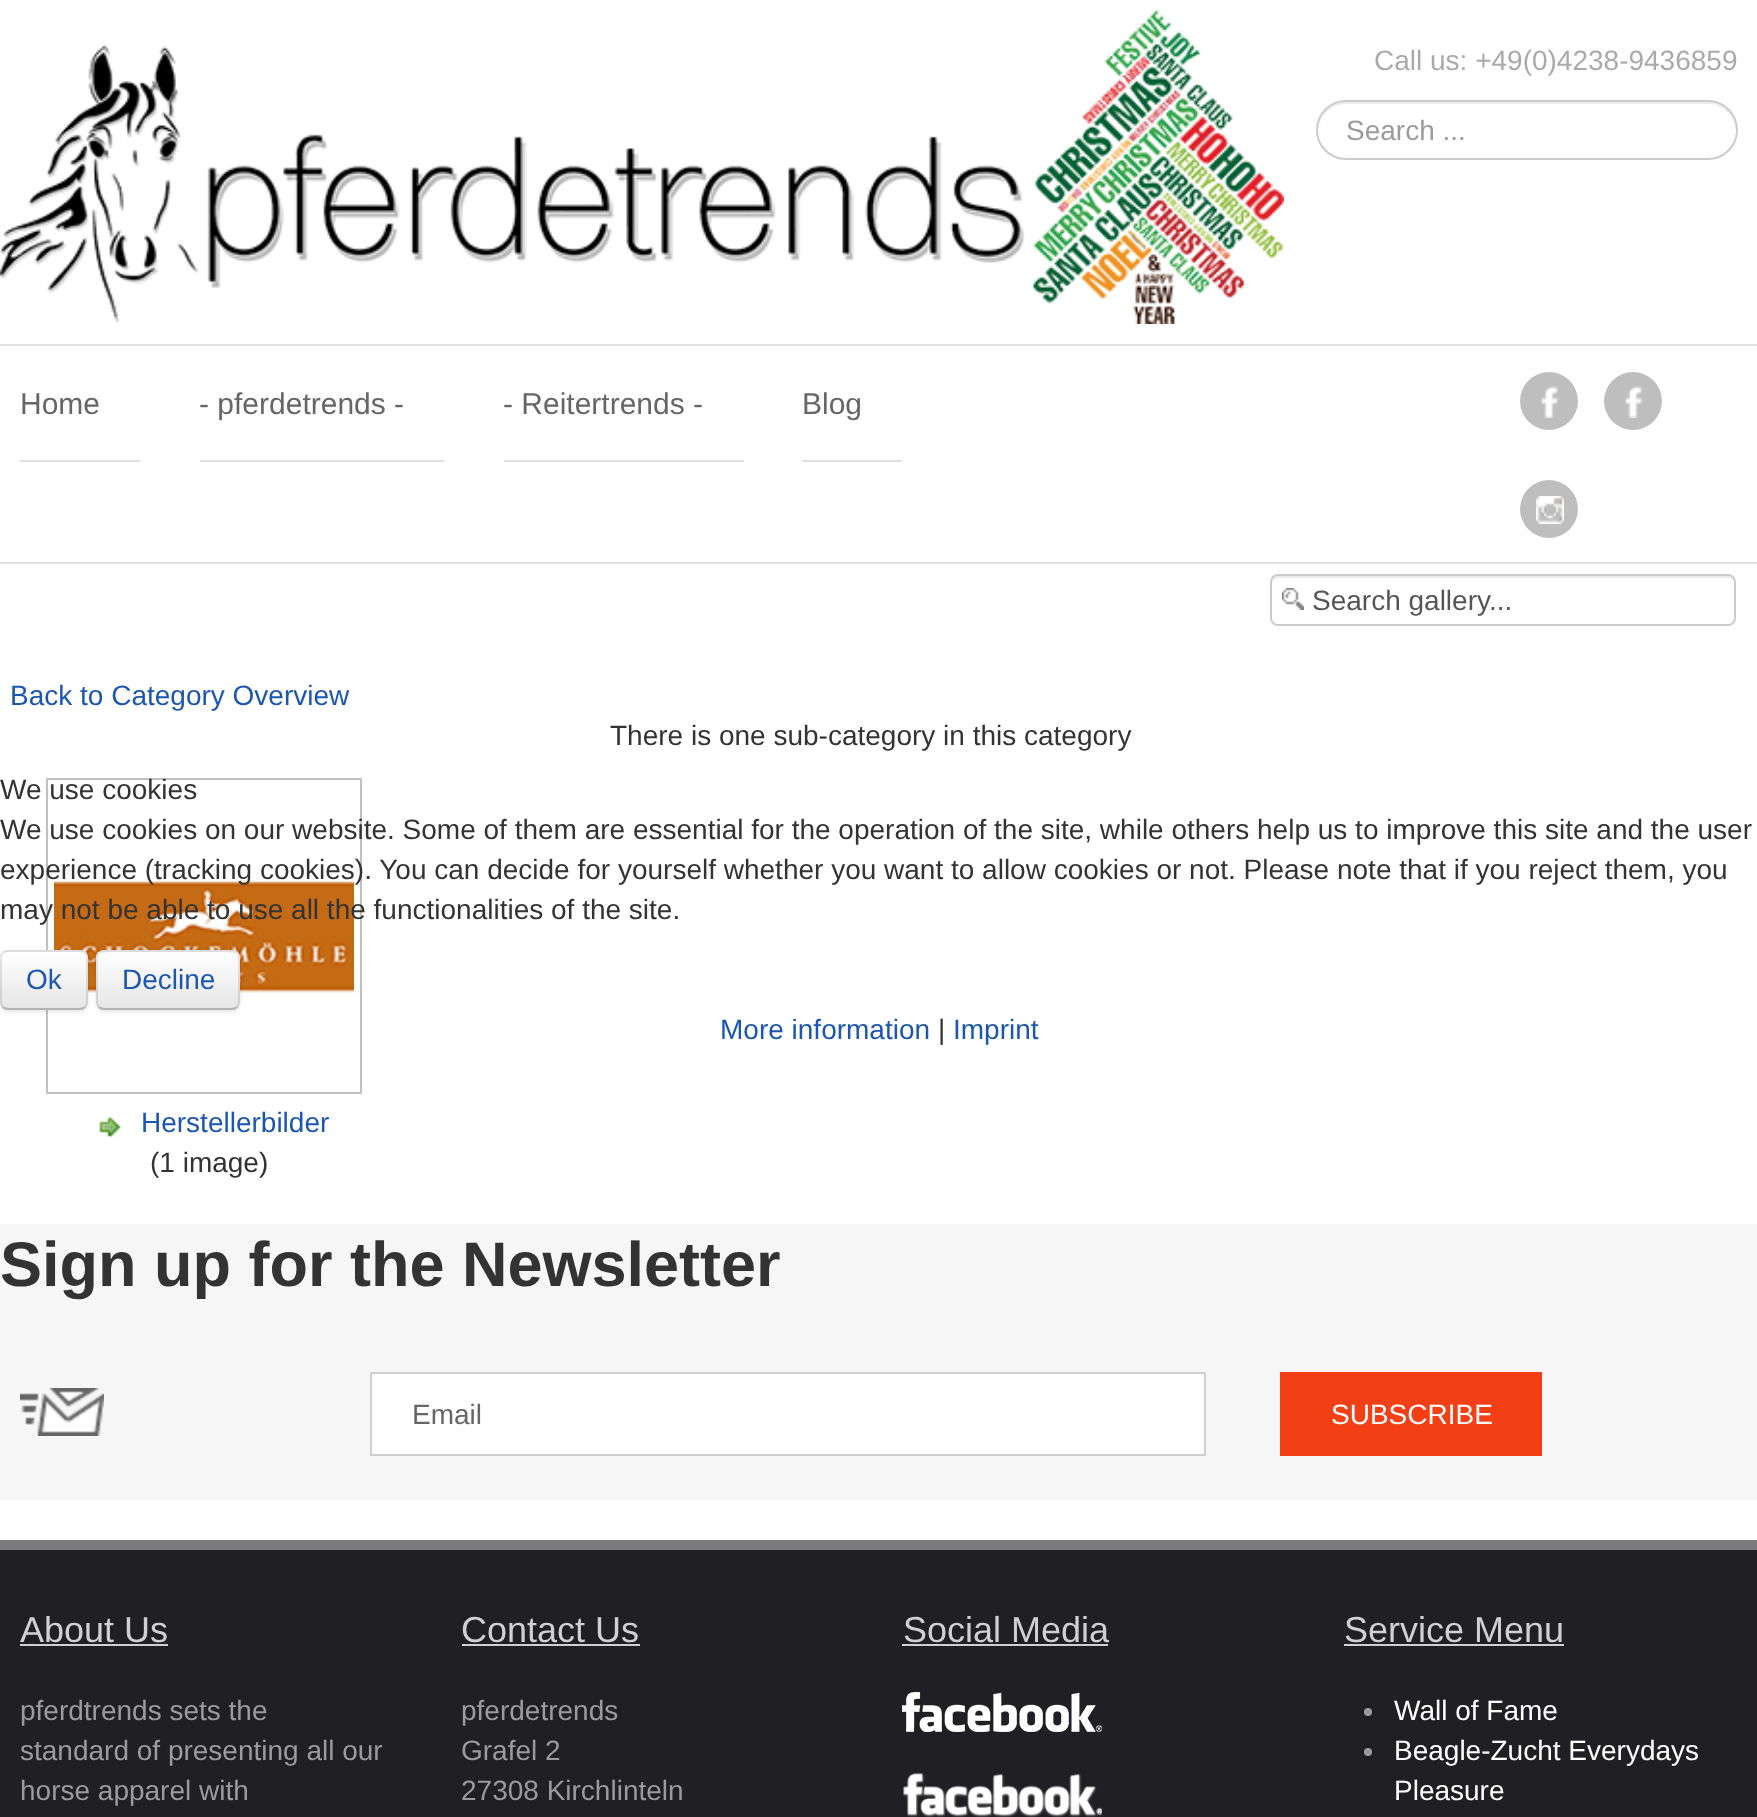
<svg xmlns="http://www.w3.org/2000/svg" width="1757" height="1817" viewBox="0 0 1757 1817">
  <defs>
    <filter id="blur1" x="-50%" y="-200%" width="200%" height="500%"><feGaussianBlur stdDeviation="2"/></filter>
    <clipPath id="clip1"><rect x="0" y="950" width="88" height="60" rx="8"/></clipPath>
    <linearGradient id="g1" gradientUnits="userSpaceOnUse" x1="44" y1="952" x2="44" y2="1008"><stop offset="0" stop-color="#ffffff"/><stop offset="1" stop-color="#e6e6e6"/></linearGradient>
    <clipPath id="clip2"><rect x="96" y="950" width="144" height="60" rx="8"/></clipPath>
    <linearGradient id="g2" gradientUnits="userSpaceOnUse" x1="168" y1="952" x2="168" y2="1008"><stop offset="0" stop-color="#ffffff"/><stop offset="1" stop-color="#e6e6e6"/></linearGradient>
  </defs>
  <rect width="100%" height="100%" fill="#ffffff"/>
  <image x="0" y="10" width="1284" height="314" href="img1.png"/>
  <text x="1374" y="70" font-family="Liberation Sans" font-size="28" fill="#aaaaaa">Call us: +49(0)4238-9436859</text>
  <path d="M1346 104H1708C1723 104 1735 116 1736 131C1737 115 1724 102 1708 102H1346C1330 102 1317 115 1318 131C1319 116 1331 104 1346 104Z" fill="#ececec"/>
  <rect x="1317" y="101" width="420" height="58" rx="29" fill="none" stroke="#cccccc" stroke-width="2"/>
  <text x="1346" y="140" font-family="Liberation Sans" font-size="28" fill="#9b9b9b">Search ...</text>
  <rect x="0" y="344" width="1757" height="2" fill="#e1e1e1"/>
  <rect x="0" y="562" width="1757" height="2" fill="#e1e1e1"/>
  <rect x="20" y="460" width="120" height="2" fill="#e1e1e1"/>
  <text x="20" y="414" font-family="Liberation Sans" font-size="30" fill="#666666">Home</text>
  <rect x="200" y="460" width="244" height="2" fill="#e1e1e1"/>
  <text x="199" y="414" font-family="Liberation Sans" font-size="30" fill="#666666">- pferdetrends -</text>
  <rect x="504" y="460" width="240" height="2" fill="#e1e1e1"/>
  <text x="503" y="414" font-family="Liberation Sans" font-size="30" fill="#666666">- Reitertrends -</text>
  <rect x="802" y="460" width="100" height="2" fill="#e1e1e1"/>
  <text x="802" y="414" font-family="Liberation Sans" font-size="30" fill="#666666">Blog</text>
  <circle cx="1549" cy="401" r="29" fill="#bebebe"/>
  <image x="1541" y="386" width="17" height="32" href="img2.png"/>
  <circle cx="1633" cy="401" r="29" fill="#bebebe"/>
  <image x="1625" y="386" width="17" height="32" href="img2.png"/>
  <circle cx="1549" cy="509" r="29" fill="#bebebe"/>
  <image x="1536" y="496" width="28" height="28" href="img3.png"/>
  <image x="1282" y="588" width="22" height="22" href="img4.png"/>
  <path d="M1278 578H1728C1731 578 1734 581 1734 584C1734 580 1733 576 1728 576H1278C1273 576 1272 580 1272 584C1272 581 1275 578 1278 578Z" fill="#ececec"/>
  <rect x="1271" y="575" width="464" height="50" rx="7" fill="none" stroke="#cccccc" stroke-width="2"/>
  <text x="1312" y="610" font-family="Liberation Sans" font-size="28" fill="#555555">Search gallery...</text>
  <text x="10" y="705" font-family="Liberation Sans" font-size="28" fill="#1b57b1">Back to Category Overview</text>
  <text x="610" y="745" font-family="Liberation Sans" font-size="28" fill="#333333">There is one sub-category in this category</text>
  <rect x="47" y="779" width="314" height="314" fill="none" stroke="#c0c0c0" stroke-width="2"/>
  <image x="54" y="881" width="300" height="112" href="img5.png"/>
  <image x="99" y="1117" width="22" height="20" href="img6.png"/>
  <text x="141" y="1132" font-family="Liberation Sans" font-size="28" fill="#1b57b1">Herstellerbilder</text>
  <text x="150" y="1172" font-family="Liberation Sans" font-size="28" fill="#333333">(1 image)</text>
  <rect x="0" y="1224" width="1757" height="276" fill="#f6f6f6"/>
  <text x="0" y="1286" font-family="Liberation Sans" font-size="63" font-weight="bold" fill="#333333">Sign up for the Newsletter</text>
  <image x="20" y="1388" width="84" height="48" href="img7.png"/>
  <rect x="371" y="1373" width="834" height="82" fill="#ffffff" stroke="#cfcfcf" stroke-width="2"/>
  <text x="412" y="1424" font-family="Liberation Sans" font-size="28" fill="#666666">Email</text>
  <rect x="1280" y="1372" width="262" height="84" fill="#f23f16"/>
  <text x="1331" y="1424" font-family="Liberation Sans" font-size="28" fill="#ffffff">SUBSCRIBE</text>
  <rect x="0" y="1550" width="1757" height="267" fill="#202024"/>
  <rect x="0" y="1540" width="1757" height="10" fill="#7c7c7c"/>
  <text x="20" y="1642" font-family="Liberation Sans" font-size="36" fill="#d0d0d0">About Us</text>
  <rect x="20" y="1644" width="148" height="2" fill="#d0d0d0"/>
  <text x="20" y="1720" font-family="Liberation Sans" font-size="28" fill="#9b9b9b">pferdtrends sets the</text>
  <text x="20" y="1760" font-family="Liberation Sans" font-size="28" fill="#9b9b9b">standard of presenting all our</text>
  <text x="20" y="1800" font-family="Liberation Sans" font-size="28" fill="#9b9b9b">horse apparel with</text>
  <text x="461" y="1642" font-family="Liberation Sans" font-size="36" fill="#d0d0d0">Contact Us</text>
  <rect x="462" y="1644" width="178" height="2" fill="#d0d0d0"/>
  <text x="461" y="1720" font-family="Liberation Sans" font-size="28" fill="#9b9b9b">pferdetrends</text>
  <text x="461" y="1760" font-family="Liberation Sans" font-size="28" fill="#9b9b9b">Grafel 2</text>
  <text x="461" y="1800" font-family="Liberation Sans" font-size="28" fill="#9b9b9b">27308 Kirchlinteln</text>
  <text x="903" y="1642" font-family="Liberation Sans" font-size="36" fill="#d0d0d0">Social Media</text>
  <rect x="902" y="1644" width="206" height="2" fill="#d0d0d0"/>
  <image x="902" y="1692" width="200" height="40" href="img8.png"/>
  <image x="902" y="1773" width="200" height="44" href="img9.png"/>
  <text x="1344" y="1642" font-family="Liberation Sans" font-size="36" fill="#d0d0d0">Service Menu</text>
  <rect x="1344" y="1644" width="220" height="2" fill="#d0d0d0"/>
  <circle cx="1368" cy="1712" r="4" fill="#9b9b9b"/>
  <text x="1394" y="1720" font-family="Liberation Sans" font-size="28" fill="#ffffff">Wall of Fame</text>
  <circle cx="1368" cy="1752" r="4" fill="#9b9b9b"/>
  <text x="1394" y="1760" font-family="Liberation Sans" font-size="28" fill="#ffffff">Beagle-Zucht Everydays</text>
  <text x="1394" y="1800" font-family="Liberation Sans" font-size="28" fill="#ffffff">Pleasure</text>
  <text x="0" y="799" font-family="Liberation Sans" font-size="28" fill="#333333">We use cookies</text>
  <text x="0" y="839" font-family="Liberation Sans" font-size="28" fill="#333333">We use cookies on our website. Some of them are essential for the operation of the site, while others help us to improve this site and the user</text>
  <text x="0" y="879" font-family="Liberation Sans" font-size="28" fill="#333333">experience (tracking cookies). You can decide for yourself whether you want to allow cookies or not. Please note that if you reject them, you</text>
  <text x="0" y="919" font-family="Liberation Sans" font-size="28" fill="#333333">may not be able to use all the functionalities of the site.</text>
  <rect x="0" y="952" width="88" height="60" rx="8" fill="#000000" fill-opacity="0.05" filter="url(#blur1)"/>
  <path d="M85 1007C83.5 1008.5 82 1009 80 1009H8C6 1009 4.5 1008.5 3 1007" fill="none" stroke="#b3b3b3" stroke-width="2"/>
  <path d="M3 1007C1.5 1005.5 1 1004 1 1002V958C1 956 1.5 954.5 3 953C4.5 951.5 6 951 8 951H80C82 951 83.5 951.5 85 953C86.5 954.5 87 956 87 958V1002C87 1004 86.5 1005.5 85 1007" fill="none" stroke="#000000" stroke-opacity="0.1" stroke-width="2"/>
  <rect x="96" y="952" width="144" height="60" rx="8" fill="#000000" fill-opacity="0.05" filter="url(#blur1)"/>
  <path d="M237 1007C235.5 1008.5 234 1009 232 1009H104C102 1009 100.5 1008.5 99 1007" fill="none" stroke="#b3b3b3" stroke-width="2"/>
  <path d="M99 1007C96 1004 97 998.5 97 994.5V980C97 947.5 92 951 125.5 951H210.5C244 951 239 947.5 239 980V994.5C239 998.5 240 1004 237 1007" fill="none" stroke="#000000" stroke-opacity="0.1" stroke-width="2"/>
  <text x="720" y="1039" font-family="Liberation Sans" font-size="28" fill="#1b57b1">More information</text>
  <text x="938" y="1039" font-family="Liberation Sans" font-size="28" fill="#333333">|</text>
  <text x="953" y="1039" font-family="Liberation Sans" font-size="28" fill="#1b57b1">Imprint</text>
  <rect x="0" y="952" width="88" height="60" rx="8" fill="#000000" fill-opacity="0.05" filter="url(#blur1)"/>
  <rect x="0" y="950" width="88" height="60" rx="8" fill="#f5f5f5"/>
  <g clip-path="url(#clip1)">
    <rect x="0" y="952" width="88" height="56" fill="url(#g1)"/>
  </g>
  <path d="M8 954H80C83 954 86 957 86 960C86 949 77 952 68 952H20C11 952 2 949 2 960C2 957 5 954 8 954Z" fill="#ffffff"/>
  <path d="M85 1007C83.5 1008.5 82 1009 80 1009H8C6 1009 4.5 1008.5 3 1007" fill="none" stroke="#b3b3b3" stroke-width="2"/>
  <path d="M3 1007C1.5 1005.5 1 1004 1 1002V958C1 956 1.5 954.5 3 953C4.5 951.5 6 951 8 951H80C82 951 83.5 951.5 85 953C86.5 954.5 87 956 87 958V1002C87 1004 86.5 1005.5 85 1007" fill="none" stroke="#000000" stroke-opacity="0.1" stroke-width="2"/>
  <text x="26" y="989" font-family="Liberation Sans" font-size="28" fill="#1b57b1">Ok</text>
  <rect x="96" y="952" width="144" height="60" rx="8" fill="#000000" fill-opacity="0.05" filter="url(#blur1)"/>
  <rect x="96" y="950" width="144" height="60" rx="8" fill="#f5f5f5"/>
  <g clip-path="url(#clip2)">
    <rect x="96" y="952" width="144" height="56" fill="url(#g2)"/>
  </g>
  <path d="M237 1007C235.5 1008.5 234 1009 232 1009H104C102 1009 100.5 1008.5 99 1007" fill="none" stroke="#b3b3b3" stroke-width="2"/>
  <path d="M99 1007C96 1004 97 998.5 97 994.5V980C97 947.5 92 951 125.5 951H210.5C244 951 239 947.5 239 980V994.5C239 998.5 240 1004 237 1007" fill="none" stroke="#000000" stroke-opacity="0.1" stroke-width="2"/>
  <text x="122" y="989" font-family="Liberation Sans" font-size="28" fill="#1b57b1">Decline</text>
</svg>
